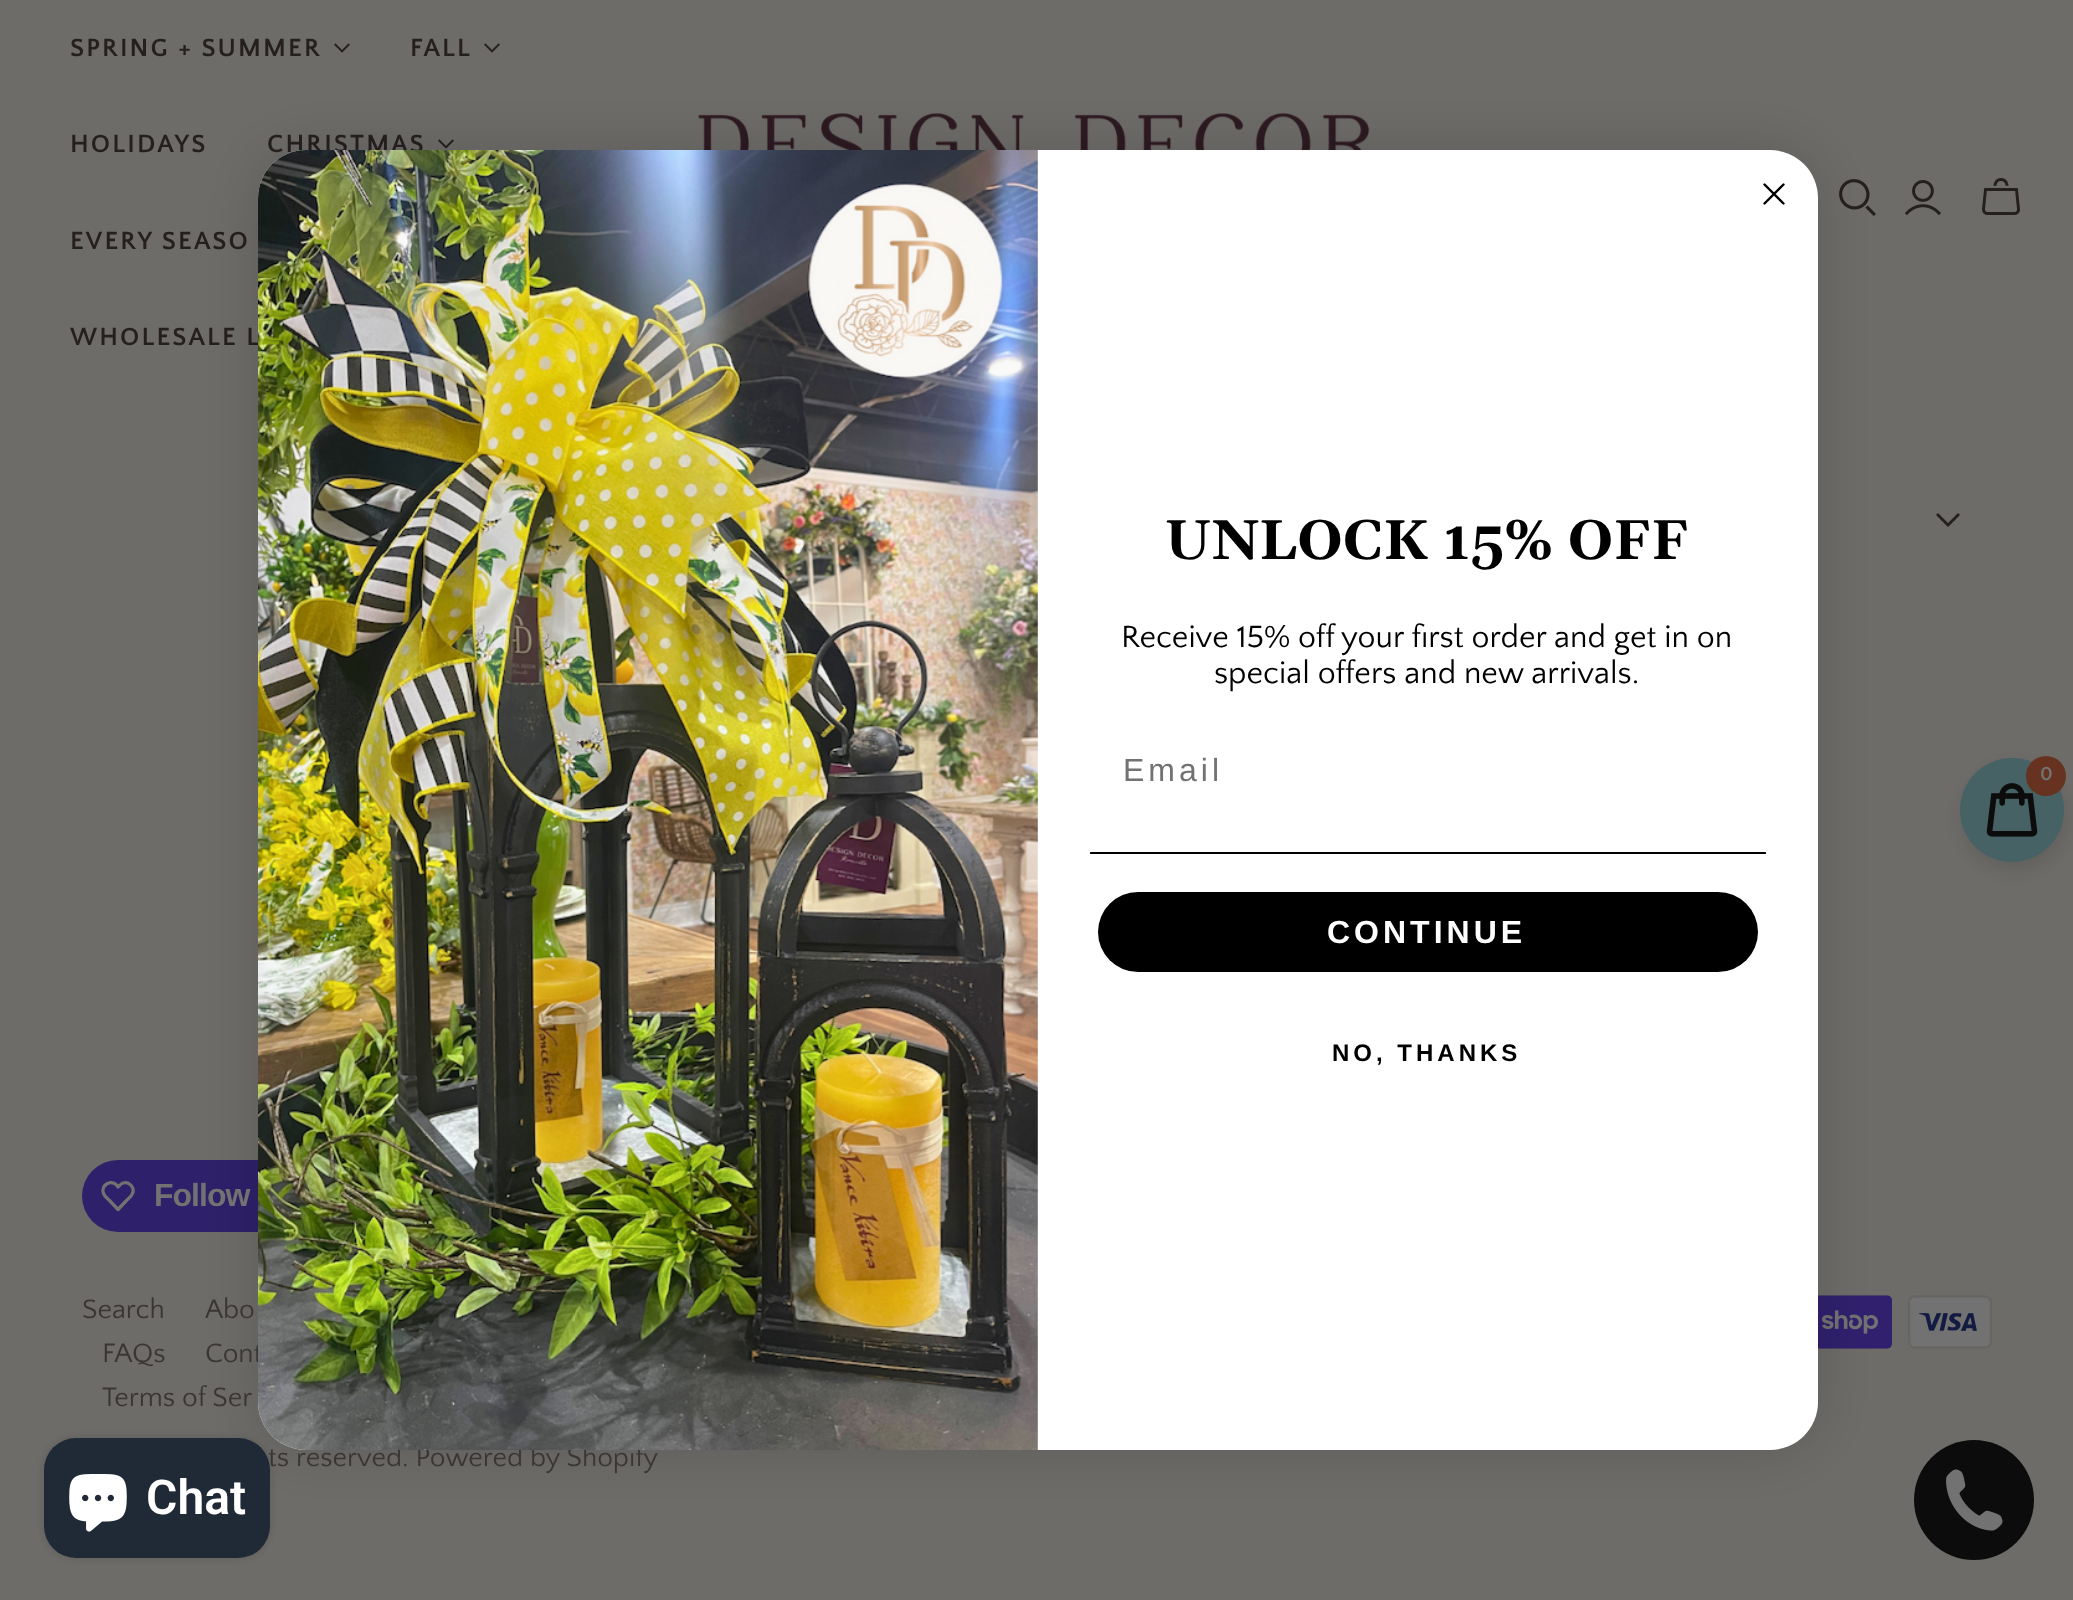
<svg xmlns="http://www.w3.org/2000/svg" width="2073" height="1600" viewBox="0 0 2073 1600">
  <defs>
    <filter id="blur1" x="-50%" y="-200%" width="200%" height="500%"><feGaussianBlur stdDeviation="30"/></filter>
    <filter id="blur2" x="-50%" y="-200%" width="200%" height="500%"><feGaussianBlur stdDeviation="10"/></filter>
    <filter id="blur3" x="-50%" y="-200%" width="200%" height="500%"><feGaussianBlur stdDeviation="5"/></filter>
  </defs>
  <rect width="100%" height="100%" fill="#6e6c69"/>
  <text x="70" y="56" font-family="Quattrocento Sans" font-size="26" font-weight="bold" letter-spacing="2.1" fill="#261f1f">SPRING + SUMMER</text>
  <image x="334" y="43" width="16" height="10" href="img1.png"/>
  <text x="410" y="56" font-family="Quattrocento Sans" font-size="26" font-weight="bold" letter-spacing="2.1" fill="#261f1f">FALL</text>
  <image x="484" y="43" width="16" height="10" href="img1.png"/>
  <text x="70" y="152" font-family="Quattrocento Sans" font-size="26" font-weight="bold" letter-spacing="2.1" fill="#261f1f">HOLIDAYS</text>
  <text x="267" y="152" font-family="Quattrocento Sans" font-size="26" font-weight="bold" letter-spacing="2.1" fill="#261f1f">CHRISTMAS</text>
  <image x="438" y="139" width="16" height="10" href="img1.png"/>
  <text x="70" y="249" font-family="Quattrocento Sans" font-size="26" font-weight="bold" letter-spacing="2.1" fill="#261f1f">EVERY SEASO</text>
  <text x="70" y="345" font-family="Quattrocento Sans" font-size="26" font-weight="bold" letter-spacing="2.1" fill="#261f1f">WHOLESALE L</text>
  <image x="698" y="113" width="672" height="37" href="img2.png"/>
  <image x="1839" y="179" width="37" height="37" href="img3.png"/>
  <image x="1904" y="180" width="37" height="35" href="img4.png"/>
  <image x="1982" y="178" width="38" height="37" href="img5.png"/>
  <rect x="82" y="1160" width="320" height="72" rx="36" fill="#2e206a"/>
  <image x="1818" y="1295" width="74" height="54" href="img9.png"/>
  <image x="1908" y="1295" width="84" height="54" href="img10.png"/>
  <rect x="258" y="150" width="1560" height="1300" rx="48" fill="#000000" fill-opacity="0.15" filter="url(#blur1)"/>
  <text x="205" y="1362" font-family="Quattrocento Sans" font-size="28" fill="#3b3635">Cont</text>
  <text x="268" y="1466" font-family="Quattrocento Sans" font-size="28" fill="#3b3635">ts reserved. Powered by Shopify</text>
  <rect x="258" y="150" width="1560" height="1300" rx="48" fill="#ffffff"/>
  <path d="M1764.5 184.5L1783.5 203.5M1764.5 203.5L1783.5 184.5Z" fill="none" stroke="#000000" stroke-width="2.4" stroke-linecap="round" stroke-linejoin="round"/>
  <image x="258" y="150" width="780" height="1300" href="img6.png"/>
  <text x="1165" y="559" font-family="Gelasio" font-size="56" font-weight="bold" fill="#000000">UNLOCK 15% OFF</text>
  <text x="1121" y="647" font-family="Quattrocento Sans" font-size="32" fill="#000000">Receive 15% off your first order and get in on</text>
  <text x="1214" y="683" font-family="Quattrocento Sans" font-size="32" fill="#000000">special offers and new arrivals.</text>
  <text x="1123" y="781" font-family="Liberation Sans" font-size="32" letter-spacing="4" fill="#727272">Email</text>
  <image x="1090" y="852" width="676" height="2" href="img7.png"/>
  <rect x="1098" y="892" width="660" height="80" rx="40" fill="#000000"/>
  <text x="1327" y="943" font-family="Liberation Sans" font-size="32" font-weight="bold" letter-spacing="4" fill="#ffffff">CONTINUE</text>
  <text x="1332" y="1061" font-family="Liberation Sans" font-size="24" font-weight="bold" letter-spacing="4" fill="#000000">NO, THANKS</text>
  <path d="M1936 515L1938 513L1948 523L1958 513L1960 515L1948 527Z" fill="#261f1f"/>
  <rect x="1962" y="766" width="104" height="104" rx="52" fill="#0c0c0c" fill-opacity="0.12" filter="url(#blur2)"/>
  <circle cx="2012" cy="810" r="52" fill="#466265"/>
  <image x="1986" y="783" width="52" height="54" href="img8.png"/>
  <circle cx="2046" cy="776" r="20" fill="#683220"/>
  <text x="2040" y="780" font-family="Quattrocento Sans" font-size="20" font-weight="bold" fill="#727272">0</text>
  <path d="M116.5 1185L118 1187C119.5 1185.5 121 1183.5 123 1183C129 1181 135 1187.5 132.5 1193.5C131.5 1196.5 128.5 1198.5 126.5 1200.5L118 1209.5L109.5 1200.5C107.5 1198.5 104.5 1196.5 103.5 1193.5C100.5 1185.5 110.5 1179 116.5 1185Z" fill="none" stroke="#727272" stroke-width="3.3" stroke-linejoin="round"/>
  <text x="154" y="1206" font-family="Liberation Sans" font-size="32" font-weight="bold" letter-spacing="-1" fill="#727272">Follow</text>
  <text x="82" y="1318" font-family="Quattrocento Sans" font-size="28" fill="#3b3635">Search</text>
  <text x="205" y="1318" font-family="Quattrocento Sans" font-size="28" fill="#3b3635">Abo</text>
  <text x="102" y="1362" font-family="Quattrocento Sans" font-size="28" fill="#3b3635">FAQs</text>
  <text x="102" y="1406" font-family="Quattrocento Sans" font-size="28" fill="#3b3635">Terms of Ser</text>
  <rect x="44" y="1438" width="226" height="120" rx="32" fill="#000000" fill-opacity="0.15" filter="url(#blur3)"/>
  <rect x="44" y="1438" width="226" height="120" rx="32" fill="#202a36"/>
  <image x="69" y="1474" width="58" height="58" href="img11.png"/>
  <text x="146" y="1514" font-family="Roboto" font-size="48" font-weight="600" fill="#ffffff">Chat</text>
  <circle cx="1974" cy="1500" r="60" fill="#0c0c0c"/>
  <image x="1946" y="1469" width="57" height="62" href="img12.png"/>
</svg>
